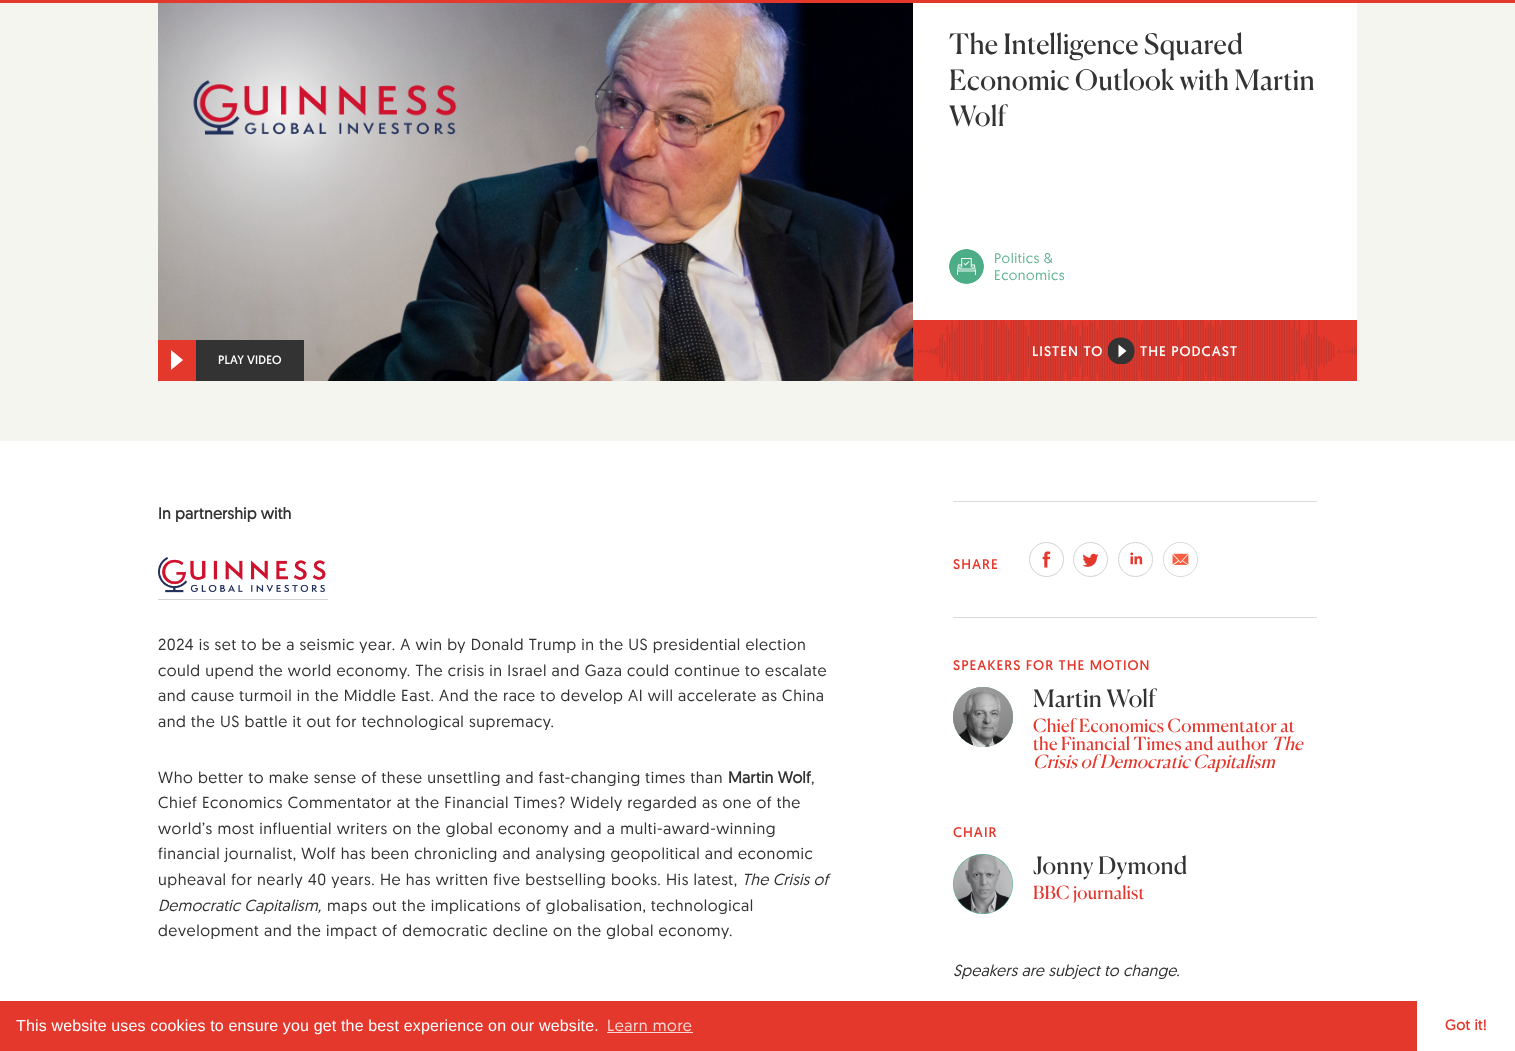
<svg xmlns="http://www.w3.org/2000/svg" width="1515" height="1051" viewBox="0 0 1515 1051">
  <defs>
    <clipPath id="clip1"><rect x="1108" y="337" width="27" height="27"/></clipPath>
  </defs>
  <rect width="100%" height="100%" fill="#ffffff"/>
  <rect x="0" y="0" width="1515" height="3" fill="#e4382d"/>
  <rect x="0" y="3" width="1515" height="438" fill="#f5f5f0"/>
  <rect x="913" y="3" width="444" height="317" fill="#ffffff"/>
  <text x="949" y="54" font-family="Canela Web" font-size="28" letter-spacing="0.25" fill="#333333">The Intelligence Squared</text>
  <text x="949" y="90" font-family="Canela Web" font-size="28" letter-spacing="0.25" fill="#333333">Economic Outlook with Martin</text>
  <text x="949" y="126" font-family="Canela Web" font-size="28" letter-spacing="0.25" fill="#333333">Wolf</text>
  <image x="949" y="249" width="35" height="35" href="img1.png"/>
  <text x="994" y="263" font-family="'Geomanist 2'" font-size="14" letter-spacing="0.5" fill="#61b594">Politics &amp;</text>
  <text x="994" y="280" font-family="'Geomanist 2'" font-size="14" letter-spacing="0.5" fill="#61b594">Economics</text>
  <image x="913" y="320" width="444" height="61" href="img2.png"/>
  <text x="1032" y="356" font-family="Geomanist" font-size="14" letter-spacing="1" fill="#ffffff">LISTEN TO</text>
  <g clip-path="url(#clip1)">
    <path d="M1121 337.5C1139 337.5 1139 364.5 1121 364.5C1103 364.5 1103 337.5 1121 337.5Z" fill="#333333"/>
  </g>
  <path d="M1118.5 357.5V344.5L1126.5 351Z" fill="#ffffff"/>
  <text x="1140" y="356" font-family="Geomanist" font-size="14" letter-spacing="1" fill="#ffffff">THE PODCAST</text>
  <image x="158" y="3" width="755" height="378" href="img3.png"/>
  <rect x="158" y="340" width="38" height="41" fill="#e4382d"/>
  <path d="M171 370V350L183 360Z" fill="#ffffff"/>
  <rect x="196" y="340" width="108" height="41" fill="#333333"/>
  <text x="218" y="364" font-family="Geomanist" font-size="12" letter-spacing="0.1" fill="#ffffff">PLAY VIDEO</text>
  <text x="158" y="519" font-family="Geomanist" font-size="16" font-weight="bold" letter-spacing="0.15" fill="#333333">In partnership with</text>
  <image x="158" y="557" width="168" height="36" href="img4.png"/>
  <rect x="158" y="599" width="170" height="1" fill="#d3d3d3"/>
  <text x="158" y="650" font-family="'Geomanist 2'" font-size="16" letter-spacing="0.57" fill="#333333">2024 is set to be a seismic year. A win by Donald Trump in the US presidential election</text>
  <text x="158" y="676" font-family="'Geomanist 2'" font-size="16" letter-spacing="0.57" fill="#333333">could upend the world economy. The crisis in Israel and Gaza could continue to escalate</text>
  <text x="158" y="701" font-family="'Geomanist 2'" font-size="16" letter-spacing="0.57" fill="#333333">and cause turmoil in the Middle East. And the race to develop AI will accelerate as China</text>
  <text x="158" y="727" font-family="'Geomanist 2'" font-size="16" letter-spacing="0.57" fill="#333333">and the US battle it out for technological supremacy.</text>
  <text x="158" y="783" font-family="'Geomanist 2'" font-size="16" letter-spacing="0.57" fill="#333333">Who better to make sense of these unsettling and fast-changing times than</text>
  <text x="728" y="783" font-family="Geomanist" font-size="16" font-weight="bold" letter-spacing="0.15" fill="#333333">Martin Wolf</text>
  <text x="811" y="783" font-family="'Geomanist 2'" font-size="16" letter-spacing="0.57" fill="#333333">,</text>
  <text x="158" y="808" font-family="'Geomanist 2'" font-size="16" letter-spacing="0.57" fill="#333333">Chief Economics Commentator at the Financial Times? Widely regarded as one of the</text>
  <text x="158" y="834" font-family="'Geomanist 2'" font-size="16" letter-spacing="0.57" fill="#333333">world’s most influential writers on the global economy and a multi-award-winning</text>
  <text x="158" y="859" font-family="'Geomanist 2'" font-size="16" letter-spacing="0.57" fill="#333333">financial journalist, Wolf has been chronicling and analysing geopolitical and economic</text>
  <text x="158" y="885" font-family="'Geomanist 2'" font-size="16" letter-spacing="0.57" fill="#333333">upheaval for nearly 40 years. He has written five bestselling books. His latest,</text>
  <text x="742" y="885" font-family="Geomanist" font-size="16" font-style="italic" letter-spacing="0.15" fill="#333333">The Crisis of</text>
  <text x="158" y="911" font-family="Geomanist" font-size="16" font-style="italic" letter-spacing="0.15" fill="#333333">Democratic Capitalism,</text>
  <text x="327" y="911" font-family="'Geomanist 2'" font-size="16" letter-spacing="0.57" fill="#333333">maps out the implications of globalisation, technological</text>
  <text x="158" y="936" font-family="'Geomanist 2'" font-size="16" letter-spacing="0.57" fill="#333333">development and the impact of democratic decline on the global economy.</text>
  <rect x="953" y="501" width="364" height="1" fill="#dadada"/>
  <text x="953" y="569" font-family="Geomanist" font-size="14" letter-spacing="1" fill="#e4382d">SHARE</text>
  <circle cx="1046.5" cy="559.5" r="17" fill="none" stroke="#d3d3d3"/>
  <image x="1042" y="551" width="9" height="17" href="img5.png"/>
  <circle cx="1090.5" cy="559.5" r="17" fill="none" stroke="#d3d3d3"/>
  <image x="1082" y="553" width="17" height="14" href="img6.png"/>
  <circle cx="1135.5" cy="559.5" r="17" fill="none" stroke="#d3d3d3"/>
  <image x="1130" y="552" width="13" height="13" href="img7.png"/>
  <circle cx="1180.5" cy="559.5" r="17" fill="none" stroke="#d3d3d3"/>
  <image x="1164" y="543" width="33" height="33" href="img8.png"/>
  <rect x="953" y="617" width="364" height="1" fill="#dadada"/>
  <text x="953" y="670" font-family="Geomanist" font-size="14" letter-spacing="1" fill="#e4382d">SPEAKERS FOR THE MOTION</text>
  <circle cx="983" cy="717" r="30" fill="#4dad87"/>
  <image x="953" y="687" width="60" height="60" href="img9.png"/>
  <text x="1033" y="707" font-family="Canela Web" font-size="24" letter-spacing="0.25" fill="#333333">Martin Wolf</text>
  <text x="1033" y="732" font-family="Canela Web" font-size="18" letter-spacing="0.2" fill="#e4382d">Chief Economics Commentator at</text>
  <text x="1033" y="750" font-family="Canela Web" font-size="18" letter-spacing="0.2" fill="#e4382d">the Financial Times and author</text>
  <text x="1271" y="750" font-family="Canela Web" font-size="18" font-style="italic" letter-spacing="0.2" fill="#e4382d">The</text>
  <text x="1033" y="768" font-family="Canela Web" font-size="18" font-style="italic" letter-spacing="0.2" fill="#e4382d">Crisis of Democratic Capitalism</text>
  <text x="953" y="837" font-family="Geomanist" font-size="14" letter-spacing="1" fill="#e4382d">CHAIR</text>
  <circle cx="983" cy="884" r="30" fill="#4dad87"/>
  <image x="953" y="854" width="60" height="60" href="img10.png"/>
  <text x="1033" y="874" font-family="Canela Web" font-size="24" letter-spacing="0.25" fill="#333333">Jonny Dymond</text>
  <text x="1033" y="899" font-family="Canela Web" font-size="18" letter-spacing="0.2" fill="#e4382d">BBC journalist</text>
  <text x="953" y="976" font-family="Geomanist" font-size="16" font-style="italic" letter-spacing="0.15" fill="#333333">Speakers are subject to change.</text>
  <rect x="0" y="1001" width="1417" height="50" fill="#e4382d"/>
  <text x="16" y="1031" font-family="Liberation Sans" font-size="16" letter-spacing="0.15" fill="#ffffff">This website uses cookies to ensure you get the best experience on our website.</text>
  <text x="607" y="1031" font-family="'Geomanist 2'" font-size="16" letter-spacing="0.57" fill="#fad7d5">Learn more</text>
  <rect x="607" y="1032" width="86" height="1" fill="#fad7d5"/>
  <text x="1445" y="1030" font-family="Geomanist" font-size="14.5" font-weight="bold" letter-spacing="0.5" fill="#e4382d">Got it!</text>
</svg>
